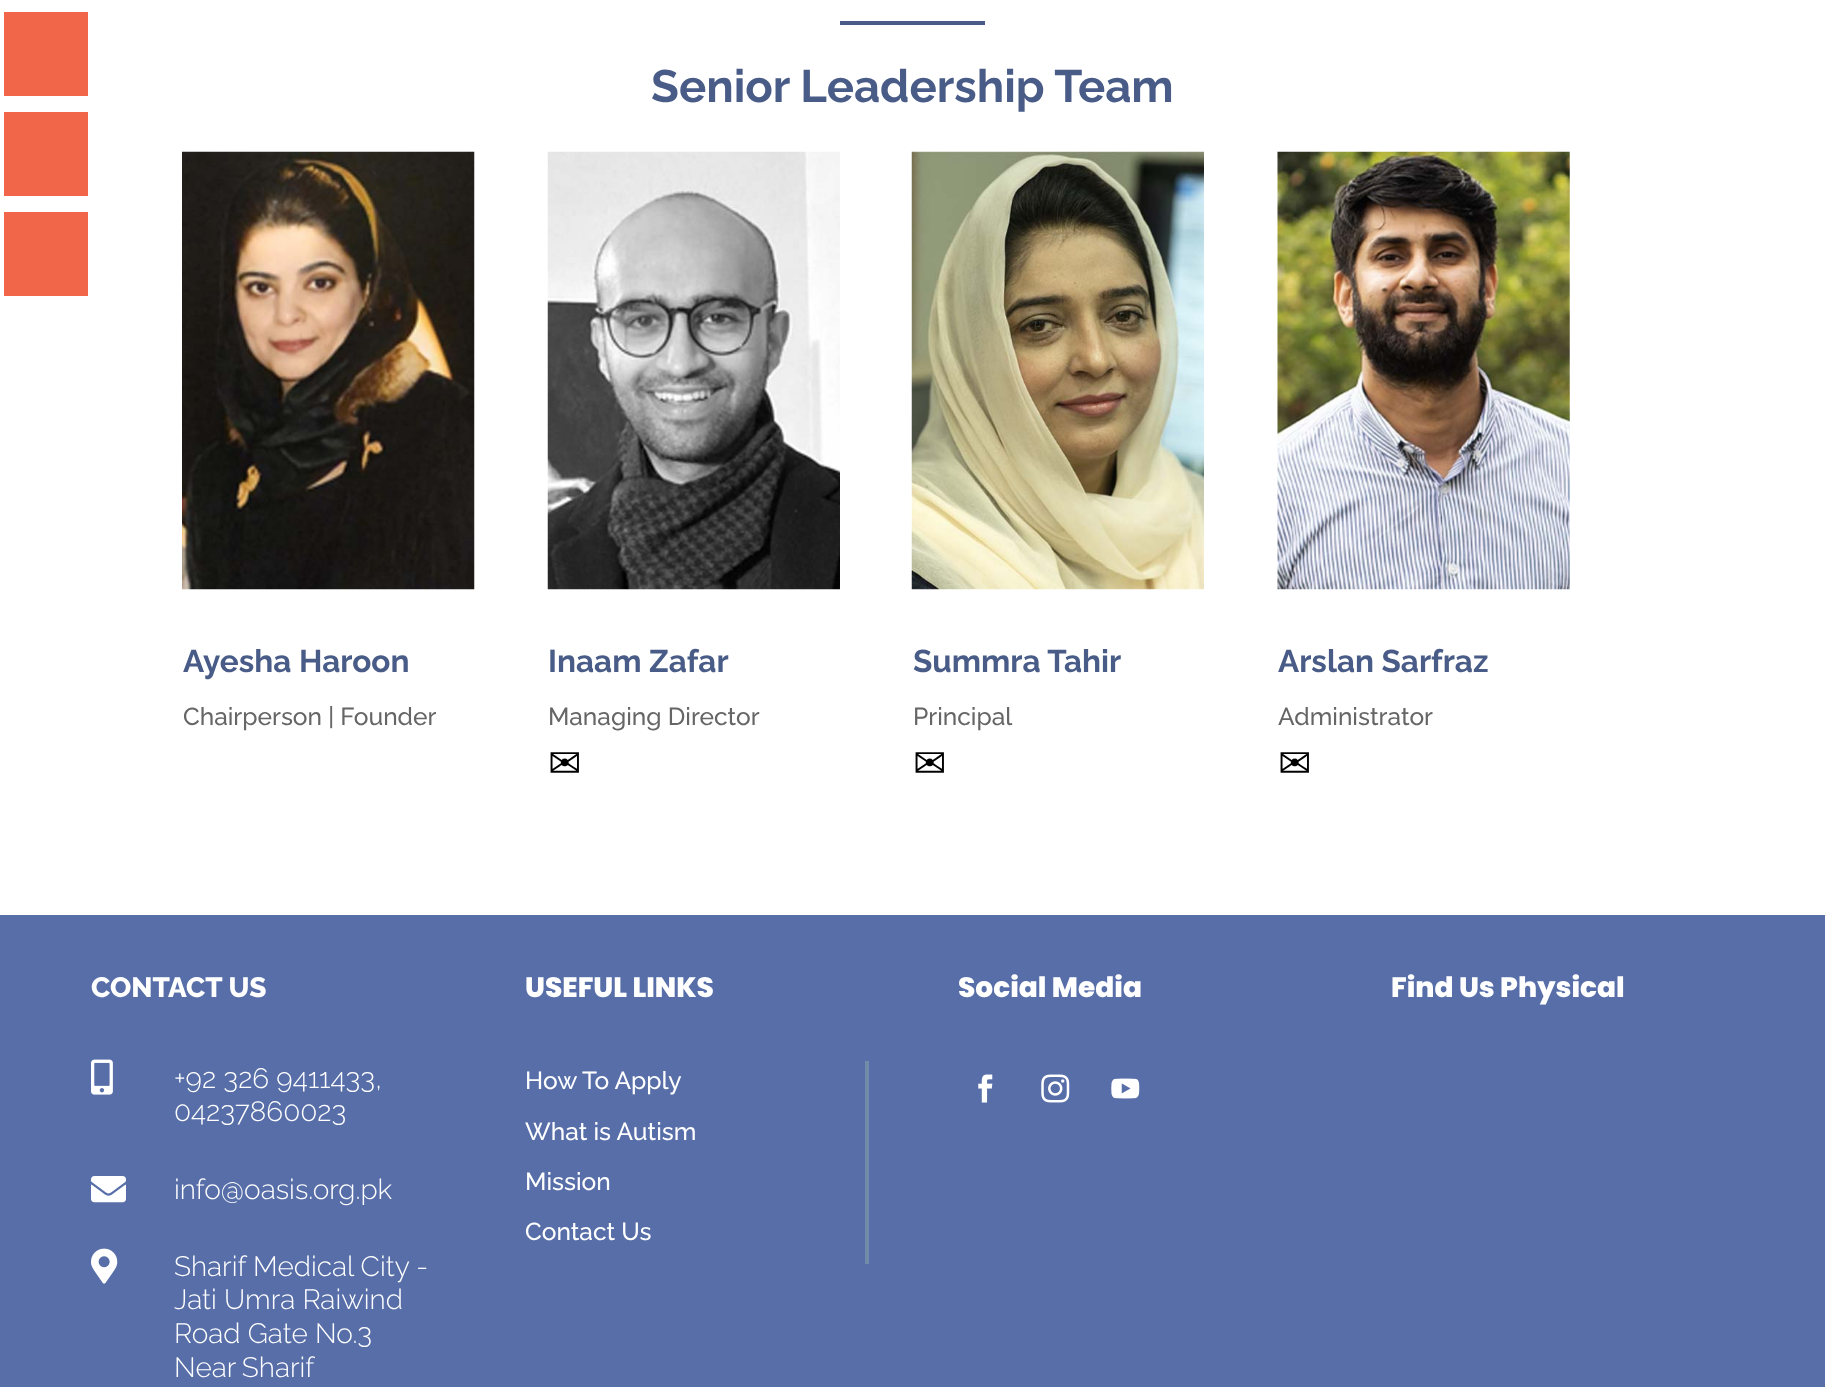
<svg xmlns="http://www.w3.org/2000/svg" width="1825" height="1387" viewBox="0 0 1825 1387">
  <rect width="100%" height="100%" fill="#ffffff"/>
  <rect x="4" y="12" width="84" height="84" fill="#f16649"/>
  <rect x="4" y="112" width="84" height="84" fill="#f16649"/>
  <rect x="4" y="212" width="84" height="84" fill="#f16649"/>
  <rect x="840" y="21" width="145" height="4" fill="#495c87"/>
  <text x="651" y="102" font-family="Raleway" font-size="45.5" font-weight="100" fill="#495c87">Senior Leadership Team</text>
  <image x="182" y="151" width="293" height="439" href="img1.png"/>
  <text x="183" y="672" font-family="Raleway" font-size="31.5" font-weight="100" fill="#495c87">Ayesha Haroon</text>
  <text x="183" y="725" font-family="'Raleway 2'" font-size="24.5" font-weight="100" fill="#666666">Chairperson | Founder</text>
  <image x="547" y="151" width="293" height="439" href="img2.png"/>
  <text x="548" y="672" font-family="Raleway" font-size="31.5" font-weight="100" fill="#495c87">Inaam Zafar</text>
  <text x="548" y="725" font-family="'Raleway 2'" font-size="24.5" font-weight="100" fill="#666666">Managing Director</text>
  <text x="548" y="777" font-family="DejaVu Sans" font-size="40" fill="#000000">✉</text>
  <image x="911" y="151" width="293" height="439" href="img3.png"/>
  <text x="913" y="672" font-family="Raleway" font-size="31.5" font-weight="100" fill="#495c87">Summra Tahir</text>
  <text x="913" y="725" font-family="'Raleway 2'" font-size="24.5" font-weight="100" fill="#666666">Principal</text>
  <text x="913" y="777" font-family="DejaVu Sans" font-size="40" fill="#000000">✉</text>
  <image x="1277" y="151" width="293" height="439" href="img4.png"/>
  <text x="1278" y="672" font-family="Raleway" font-size="31.5" font-weight="100" fill="#495c87">Arslan Sarfraz</text>
  <text x="1278" y="725" font-family="'Raleway 2'" font-size="24.5" font-weight="100" fill="#666666">Administrator</text>
  <text x="1278" y="777" font-family="DejaVu Sans" font-size="40" fill="#000000">✉</text>
  <rect x="0" y="915" width="1825" height="472" fill="#576ea8"/>
  <text x="91" y="997" font-family="'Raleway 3'" font-size="28" font-weight="100" fill="#ffffff">CONTACT US</text>
  <text x="525" y="997" font-family="Poppins" font-size="28" font-weight="800" fill="#ffffff">USEFUL LINKS</text>
  <text x="958" y="997" font-family="Poppins" font-size="28" font-weight="800" fill="#ffffff">Social Media</text>
  <text x="1391" y="997" font-family="Poppins" font-size="28" font-weight="800" fill="#ffffff">Find Us Physical</text>
  <image x="91" y="1059" width="22" height="36" href="img5.png"/>
  <text x="174" y="1088" font-family="'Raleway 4'" font-size="28" font-weight="100" fill="#ffffff">+92 326 9411433,</text>
  <text x="174" y="1121" font-family="'Raleway 4'" font-size="28" font-weight="100" fill="#ffffff">04237860023</text>
  <image x="91" y="1176" width="35" height="27" href="img6.png"/>
  <text x="174" y="1199" font-family="'Raleway 4'" font-size="28" font-weight="100" fill="#ffffff">info@oasis.org.pk</text>
  <image x="91" y="1248" width="27" height="36" href="img7.png"/>
  <text x="174" y="1276" font-family="'Raleway 4'" font-size="28" font-weight="100" fill="#ffffff">Sharif Medical City -</text>
  <text x="174" y="1309" font-family="'Raleway 4'" font-size="28" font-weight="100" fill="#ffffff">Jati Umra Raiwind</text>
  <text x="174" y="1343" font-family="'Raleway 4'" font-size="28" font-weight="100" fill="#ffffff">Road Gate No.3</text>
  <text x="174" y="1377" word-spacing="-1" font-family="'Raleway 4'" font-size="28" font-weight="100" fill="#ffffff">Near Sharif</text>
  <rect x="865" y="1061" width="4" height="203" fill="#718ca8"/>
  <text x="525" y="1089" font-family="'Raleway 2'" font-size="24.5" font-weight="100" fill="#ffffff">How To Apply</text>
  <text x="525" y="1140" font-family="'Raleway 2'" font-size="24.5" font-weight="100" fill="#ffffff">What is Autism</text>
  <text x="525" y="1190" font-family="'Raleway 2'" font-size="24.5" font-weight="100" fill="#ffffff">Mission</text>
  <text x="525" y="1240" font-family="'Raleway 2'" font-size="24.5" font-weight="100" fill="#ffffff">Contact Us</text>
  <image x="978" y="1074" width="15" height="29" href="img8.png"/>
  <image x="1041" y="1074" width="29" height="29" href="img9.png"/>
  <image x="1111" y="1078" width="29" height="21" href="img10.png"/>
</svg>
